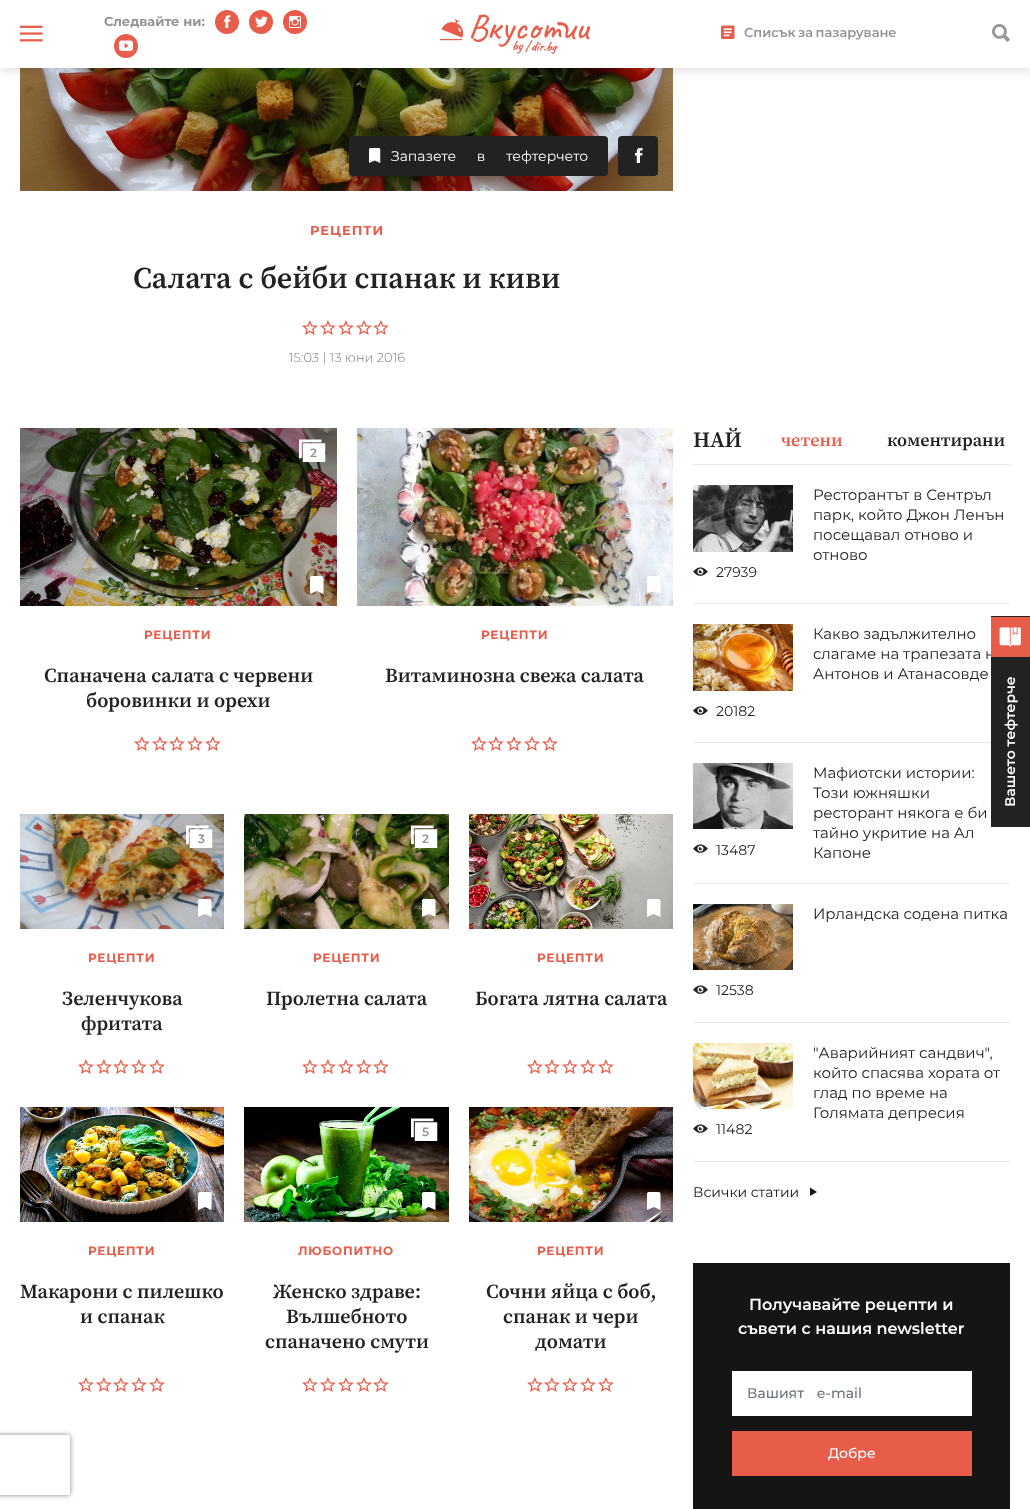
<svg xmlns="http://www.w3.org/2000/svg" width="1030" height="1509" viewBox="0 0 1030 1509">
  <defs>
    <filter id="blur1" x="-50%" y="-200%" width="200%" height="500%"><feGaussianBlur stdDeviation="4"/></filter>
    <clipPath id="clip1"><path d="M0 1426H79V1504H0ZM-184 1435H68C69 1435 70 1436 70 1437V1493C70 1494 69 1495 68 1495H-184C-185 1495-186 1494-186 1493V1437C-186 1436-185 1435-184 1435Z" clip-rule="evenodd"/></clipPath>
    <filter id="blur2" x="-50%" y="-200%" width="200%" height="500%"><feGaussianBlur stdDeviation="2.5"/></filter>
  </defs>
  <rect width="100%" height="100%" fill="#ffffff"/>
  <image x="20" y="68" width="653" height="123" href="img9.png"/>
  <rect x="0" y="4" width="1030" height="68" fill="#000000" fill-opacity="0.1" filter="url(#blur1)"/>
  <rect x="0" y="0" width="1030" height="68" fill="#ffffff"/>
  <text x="104" y="26" font-family="Montserrat" font-size="13" font-weight="bold" fill="#949494">Следвайте ни:</text>
  <circle cx="227" cy="22" r="12" fill="#e85c4a"/>
  <image x="224" y="15" width="7" height="13" href="img1.png"/>
  <circle cx="261" cy="22" r="12" fill="#e85c4a"/>
  <image x="255" y="16" width="13" height="11" href="img2.png"/>
  <circle cx="295" cy="22" r="12" fill="#e85c4a"/>
  <image x="289" y="16" width="12" height="12" href="img3.png"/>
  <circle cx="126" cy="46" r="12" fill="#e85c4a"/>
  <image x="119" y="40" width="14" height="11" href="img4.png"/>
  <image x="20" y="25" width="23" height="17" href="img5.png"/>
  <image x="440" y="14" width="151" height="40" href="img6.png"/>
  <image x="721" y="25" width="14" height="14" href="img7.png"/>
  <text x="744" y="37" word-spacing="-1" font-family="Montserrat" font-size="13" font-weight="600" fill="#949494">Списък за пазаруване</text>
  <image x="992" y="24" width="18" height="18" href="img8.png"/>
  <rect x="349" y="136" width="259" height="40" rx="4" fill="#222222"/>
  <image x="369" y="148" width="12" height="15" href="img10.png"/>
  <text x="391" y="161" word-spacing="17" font-family="Montserrat" font-size="14" fill="#ffffff">Запазете в тефтерчето</text>
  <rect x="618" y="136" width="40" height="40" rx="4" fill="#222222"/>
  <image x="635" y="148" width="8" height="15" href="img11.png"/>
  <text x="310" y="235" font-family="Montserrat" font-size="13" font-weight="bold" letter-spacing="1" fill="#e85c4a">РЕЦЕПТИ</text>
  <text x="133" y="288" font-family="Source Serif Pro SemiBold" font-size="30" font-weight="600" fill="#222222">Салата с бейби спанак и киви</text>
  <image x="302" y="320" width="16" height="15" href="img12.png"/>
  <image x="320" y="320" width="16" height="15" href="img12.png"/>
  <image x="338" y="320" width="16" height="15" href="img12.png"/>
  <image x="356" y="320" width="16" height="15" href="img12.png"/>
  <image x="373" y="320" width="16" height="15" href="img12.png"/>
  <text x="289" y="362" font-family="Montserrat" font-size="13" font-weight="300" fill="#7b7b7b">15:03 | 13 юни 2016</text>
  <image x="20" y="428" width="317" height="178" href="img13.png"/>
  <image x="299" y="439" width="27" height="23" href="img14.png"/>
  <text x="310" y="457" font-family="Montserrat" font-size="12" font-weight="600" fill="#949494">2</text>
  <image x="310" y="576" width="14" height="18" href="img15.png"/>
  <text x="144" y="639" font-family="Montserrat" font-size="12" font-weight="bold" letter-spacing="0.75" fill="#e85c4a">РЕЦЕПТИ</text>
  <text x="44" y="682" font-family="Source Serif Pro SemiBold" font-size="20" font-weight="600" fill="#222222">Спаначена салата с червени</text>
  <text x="86" y="707" font-family="Source Serif Pro SemiBold" font-size="20" font-weight="600" fill="#222222">боровинки и орехи</text>
  <image x="134" y="736" width="16" height="15" href="img12.png"/>
  <image x="152" y="736" width="16" height="15" href="img12.png"/>
  <image x="169" y="736" width="16" height="15" href="img12.png"/>
  <image x="187" y="736" width="16" height="15" href="img12.png"/>
  <image x="205" y="736" width="16" height="15" href="img12.png"/>
  <image x="357" y="428" width="316" height="178" href="img16.png"/>
  <image x="647" y="576" width="14" height="18" href="img17.png"/>
  <text x="481" y="639" font-family="Montserrat" font-size="12" font-weight="bold" letter-spacing="0.75" fill="#e85c4a">РЕЦЕПТИ</text>
  <text x="385" y="682" font-family="Source Serif Pro SemiBold" font-size="20" font-weight="600" fill="#222222">Витаминозна свежа салата</text>
  <image x="471" y="736" width="16" height="15" href="img12.png"/>
  <image x="488" y="736" width="16" height="15" href="img12.png"/>
  <image x="506" y="736" width="16" height="15" href="img12.png"/>
  <image x="524" y="736" width="16" height="15" href="img12.png"/>
  <image x="542" y="736" width="16" height="15" href="img12.png"/>
  <image x="20" y="814" width="204" height="115" href="img18.png"/>
  <image x="186" y="825" width="27" height="23" href="img19.png"/>
  <text x="198" y="843" font-family="Montserrat" font-size="12" font-weight="600" fill="#949494">3</text>
  <image x="198" y="899" width="14" height="18" href="img20.png"/>
  <text x="88" y="962" font-family="Montserrat" font-size="12" font-weight="bold" letter-spacing="0.75" fill="#e85c4a">РЕЦЕПТИ</text>
  <text x="62" y="1005" font-family="Source Serif Pro SemiBold" font-size="20" font-weight="600" fill="#222222">Зеленчукова</text>
  <text x="81" y="1030" font-family="Source Serif Pro SemiBold" font-size="20" font-weight="600" fill="#222222">фритата</text>
  <image x="78" y="1059" width="16" height="15" href="img12.png"/>
  <image x="96" y="1059" width="16" height="15" href="img12.png"/>
  <image x="113" y="1059" width="16" height="15" href="img12.png"/>
  <image x="131" y="1059" width="16" height="15" href="img12.png"/>
  <image x="149" y="1059" width="16" height="15" href="img12.png"/>
  <image x="244" y="814" width="205" height="115" href="img21.png"/>
  <image x="411" y="825" width="27" height="23" href="img22.png"/>
  <text x="422" y="843" font-family="Montserrat" font-size="12" font-weight="600" fill="#949494">2</text>
  <image x="422" y="899" width="14" height="18" href="img23.png"/>
  <text x="313" y="962" font-family="Montserrat" font-size="12" font-weight="bold" letter-spacing="0.75" fill="#e85c4a">РЕЦЕПТИ</text>
  <text x="266" y="1005" font-family="Source Serif Pro SemiBold" font-size="20" font-weight="600" fill="#222222">Пролетна салата</text>
  <image x="302" y="1059" width="16" height="15" href="img12.png"/>
  <image x="320" y="1059" width="16" height="15" href="img12.png"/>
  <image x="338" y="1059" width="16" height="15" href="img12.png"/>
  <image x="356" y="1059" width="16" height="15" href="img12.png"/>
  <image x="373" y="1059" width="16" height="15" href="img12.png"/>
  <image x="469" y="814" width="204" height="115" href="img24.png"/>
  <image x="647" y="899" width="14" height="18" href="img25.png"/>
  <text x="537" y="962" font-family="Montserrat" font-size="12" font-weight="bold" letter-spacing="0.75" fill="#e85c4a">РЕЦЕПТИ</text>
  <text x="475" y="1005" font-family="Source Serif Pro SemiBold" font-size="20" font-weight="600" fill="#222222">Богата лятна салата</text>
  <image x="527" y="1059" width="16" height="15" href="img12.png"/>
  <image x="544" y="1059" width="16" height="15" href="img12.png"/>
  <image x="562" y="1059" width="16" height="15" href="img12.png"/>
  <image x="580" y="1059" width="16" height="15" href="img12.png"/>
  <image x="598" y="1059" width="16" height="15" href="img12.png"/>
  <image x="20" y="1107" width="204" height="115" href="img26.png"/>
  <image x="198" y="1192" width="14" height="18" href="img27.png"/>
  <text x="88" y="1255" font-family="Montserrat" font-size="12" font-weight="bold" letter-spacing="0.75" fill="#e85c4a">РЕЦЕПТИ</text>
  <text x="20" y="1298" font-family="Source Serif Pro SemiBold" font-size="20" font-weight="600" fill="#222222">Макарони с пилешко</text>
  <text x="80" y="1323" font-family="Source Serif Pro SemiBold" font-size="20" font-weight="600" fill="#222222">и спанак</text>
  <image x="78" y="1377" width="16" height="15" href="img12.png"/>
  <image x="96" y="1377" width="16" height="15" href="img12.png"/>
  <image x="113" y="1377" width="16" height="15" href="img12.png"/>
  <image x="131" y="1377" width="16" height="15" href="img12.png"/>
  <image x="149" y="1377" width="16" height="15" href="img12.png"/>
  <image x="244" y="1107" width="205" height="115" href="img28.png"/>
  <image x="411" y="1118" width="27" height="23" href="img29.png"/>
  <text x="422" y="1136" font-family="Montserrat" font-size="12" font-weight="600" fill="#949494">5</text>
  <image x="422" y="1192" width="14" height="18" href="img30.png"/>
  <text x="298" y="1255" font-family="Montserrat" font-size="12" font-weight="bold" letter-spacing="0.75" fill="#e85c4a">ЛЮБОПИТНО</text>
  <text x="273" y="1298" font-family="Source Serif Pro SemiBold" font-size="20" font-weight="600" fill="#222222">Женско здраве:</text>
  <text x="286" y="1323" font-family="Source Serif Pro SemiBold" font-size="20" font-weight="600" fill="#222222">Вълшебното</text>
  <text x="265" y="1348" font-family="Source Serif Pro SemiBold" font-size="20" font-weight="600" fill="#222222">спаначено смути</text>
  <image x="302" y="1377" width="16" height="15" href="img12.png"/>
  <image x="320" y="1377" width="16" height="15" href="img12.png"/>
  <image x="338" y="1377" width="16" height="15" href="img12.png"/>
  <image x="356" y="1377" width="16" height="15" href="img12.png"/>
  <image x="373" y="1377" width="16" height="15" href="img12.png"/>
  <image x="469" y="1107" width="204" height="115" href="img31.png"/>
  <image x="647" y="1192" width="14" height="18" href="img32.png"/>
  <text x="537" y="1255" font-family="Montserrat" font-size="12" font-weight="bold" letter-spacing="0.75" fill="#e85c4a">РЕЦЕПТИ</text>
  <text x="486" y="1298" font-family="Source Serif Pro SemiBold" font-size="20" font-weight="600" fill="#222222">Сочни яйца с боб,</text>
  <text x="503" y="1323" font-family="Source Serif Pro SemiBold" font-size="20" font-weight="600" fill="#222222">спанак и чери</text>
  <text x="535" y="1348" font-family="Source Serif Pro SemiBold" font-size="20" font-weight="600" fill="#222222">домати</text>
  <image x="527" y="1377" width="16" height="15" href="img12.png"/>
  <image x="544" y="1377" width="16" height="15" href="img12.png"/>
  <image x="562" y="1377" width="16" height="15" href="img12.png"/>
  <image x="580" y="1377" width="16" height="15" href="img12.png"/>
  <image x="598" y="1377" width="16" height="15" href="img12.png"/>
  <rect x="693" y="464" width="317" height="1" fill="#e6e6e6"/>
  <text x="693" y="447" font-family="Source Serif Pro SemiBold" font-size="22" font-weight="600" fill="#222222">НАЙ</text>
  <text x="781" y="446" font-family="Source Serif Pro SemiBold" font-size="18" font-weight="600" fill="#e85c4a">четени</text>
  <text x="887" y="446" font-family="Source Serif Pro SemiBold" font-size="18" font-weight="600" fill="#222222">коментирани</text>
  <text x="813" y="500" font-family="Montserrat" font-size="15" fill="#222222">Ресторантът в Сентръл</text>
  <text x="813" y="520" font-family="Montserrat" font-size="15" fill="#222222">парк, който Джон Ленън</text>
  <text x="813" y="540" font-family="Montserrat" font-size="15" fill="#222222">посещавал отново и</text>
  <text x="813" y="560" font-family="Montserrat" font-size="15" fill="#222222">отново</text>
  <image x="693" y="485" width="100" height="67" href="img33.png"/>
  <image x="693" y="567" width="15" height="9" href="img34.png"/>
  <text x="716" y="577" font-family="Montserrat" font-size="14" fill="#222222">27939</text>
  <rect x="693" y="603" width="317" height="1" fill="#e8e8e8"/>
  <text x="813" y="639" font-family="Montserrat" font-size="15" fill="#222222">Какво задължително</text>
  <text x="813" y="659" font-family="Montserrat" font-size="15" fill="#222222">слагаме на трапезата н</text>
  <text x="813" y="679" font-family="Montserrat" font-size="15" fill="#222222">Антонов и Атанасовде</text>
  <image x="693" y="624" width="100" height="67" href="img35.png"/>
  <image x="693" y="706" width="15" height="9" href="img34.png"/>
  <text x="716" y="716" font-family="Montserrat" font-size="14" fill="#222222">20182</text>
  <rect x="693" y="742" width="298" height="1" fill="#e8e8e8"/>
  <image x="693" y="763" width="100" height="66" href="img36.png"/>
  <image x="693" y="844" width="15" height="9" href="img34.png"/>
  <text x="716" y="855" font-family="Montserrat" font-size="14" fill="#222222">13487</text>
  <text x="813" y="778" font-family="Montserrat" font-size="15" fill="#222222">Мафиотски истории:</text>
  <text x="813" y="798" font-family="Montserrat" font-size="15" fill="#222222">Този южняшки</text>
  <text x="813" y="818" font-family="Montserrat" font-size="15" fill="#222222">ресторант някога е би</text>
  <text x="813" y="838" font-family="Montserrat" font-size="15" fill="#222222">тайно укритие на Ал</text>
  <text x="813" y="858" font-family="Montserrat" font-size="15" fill="#222222">Капоне</text>
  <rect x="693" y="883" width="317" height="1" fill="#e8e8e8"/>
  <text x="813" y="919" font-family="Montserrat" font-size="15" fill="#222222">Ирландска содена питка</text>
  <image x="693" y="904" width="100" height="66" href="img37.png"/>
  <image x="693" y="985" width="15" height="9" href="img34.png"/>
  <text x="716" y="995" font-family="Montserrat" font-size="14" fill="#222222">12538</text>
  <rect x="693" y="1022" width="317" height="1" fill="#e8e8e8"/>
  <text x="813" y="1058" font-family="Montserrat" font-size="15" fill="#222222">"Аварийният сандвич",</text>
  <text x="813" y="1078" font-family="Montserrat" font-size="15" fill="#222222">който спасява хората от</text>
  <text x="813" y="1098" font-family="Montserrat" font-size="15" fill="#222222">глад по време на</text>
  <text x="813" y="1118" font-family="Montserrat" font-size="15" fill="#222222">Голямата депресия</text>
  <image x="693" y="1043" width="100" height="66" href="img38.png"/>
  <image x="693" y="1124" width="15" height="9" href="img34.png"/>
  <text x="716" y="1134" font-family="Montserrat" font-size="14" fill="#222222">11482</text>
  <rect x="693" y="1161" width="317" height="1" fill="#e8e8e8"/>
  <text x="693" y="1197" font-family="Montserrat" font-size="14" fill="#151515">Всички статии</text>
  <path d="M810 1187.5L817 1192L810 1196Z" fill="#151515"/>
  <rect x="693" y="1263" width="317" height="246" fill="#151515"/>
  <text x="749" y="1310" font-family="Montserrat" font-size="16" font-weight="600" fill="#ffffff">Получавайте рецепти и</text>
  <text x="738" y="1334" font-family="Montserrat" font-size="16" font-weight="600" fill="#ffffff">съвети с нашия newsletter</text>
  <rect x="732" y="1371" width="240" height="45" fill="#ffffff"/>
  <text x="747" y="1398" word-spacing="9" font-family="Montserrat" font-size="14" font-weight="500" fill="#6c757d">Вашият e-mail</text>
  <rect x="732" y="1431" width="240" height="45" fill="#e85c4a"/>
  <text x="828" y="1458" font-family="Montserrat" font-size="14" font-weight="500" fill="#ffffff">Добре</text>
  <rect x="991" y="616" width="39" height="211" fill="#222222"/>
  <rect x="991" y="617" width="39" height="40" fill="#e85c4a"/>
  <image x="999" y="627" width="22" height="20" href="img39.png"/>
  <text x="1015" y="807" transform="rotate(-90 1015 807)" font-family="Montserrat" font-size="14" font-weight="600" fill="#ffffff">Вашето тефтерче</text>
  <g clip-path="url(#clip1)">
    <rect x="-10" y="1435" width="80" height="60" rx="2" fill="#808080" filter="url(#blur2)"/>
  </g>
</svg>
